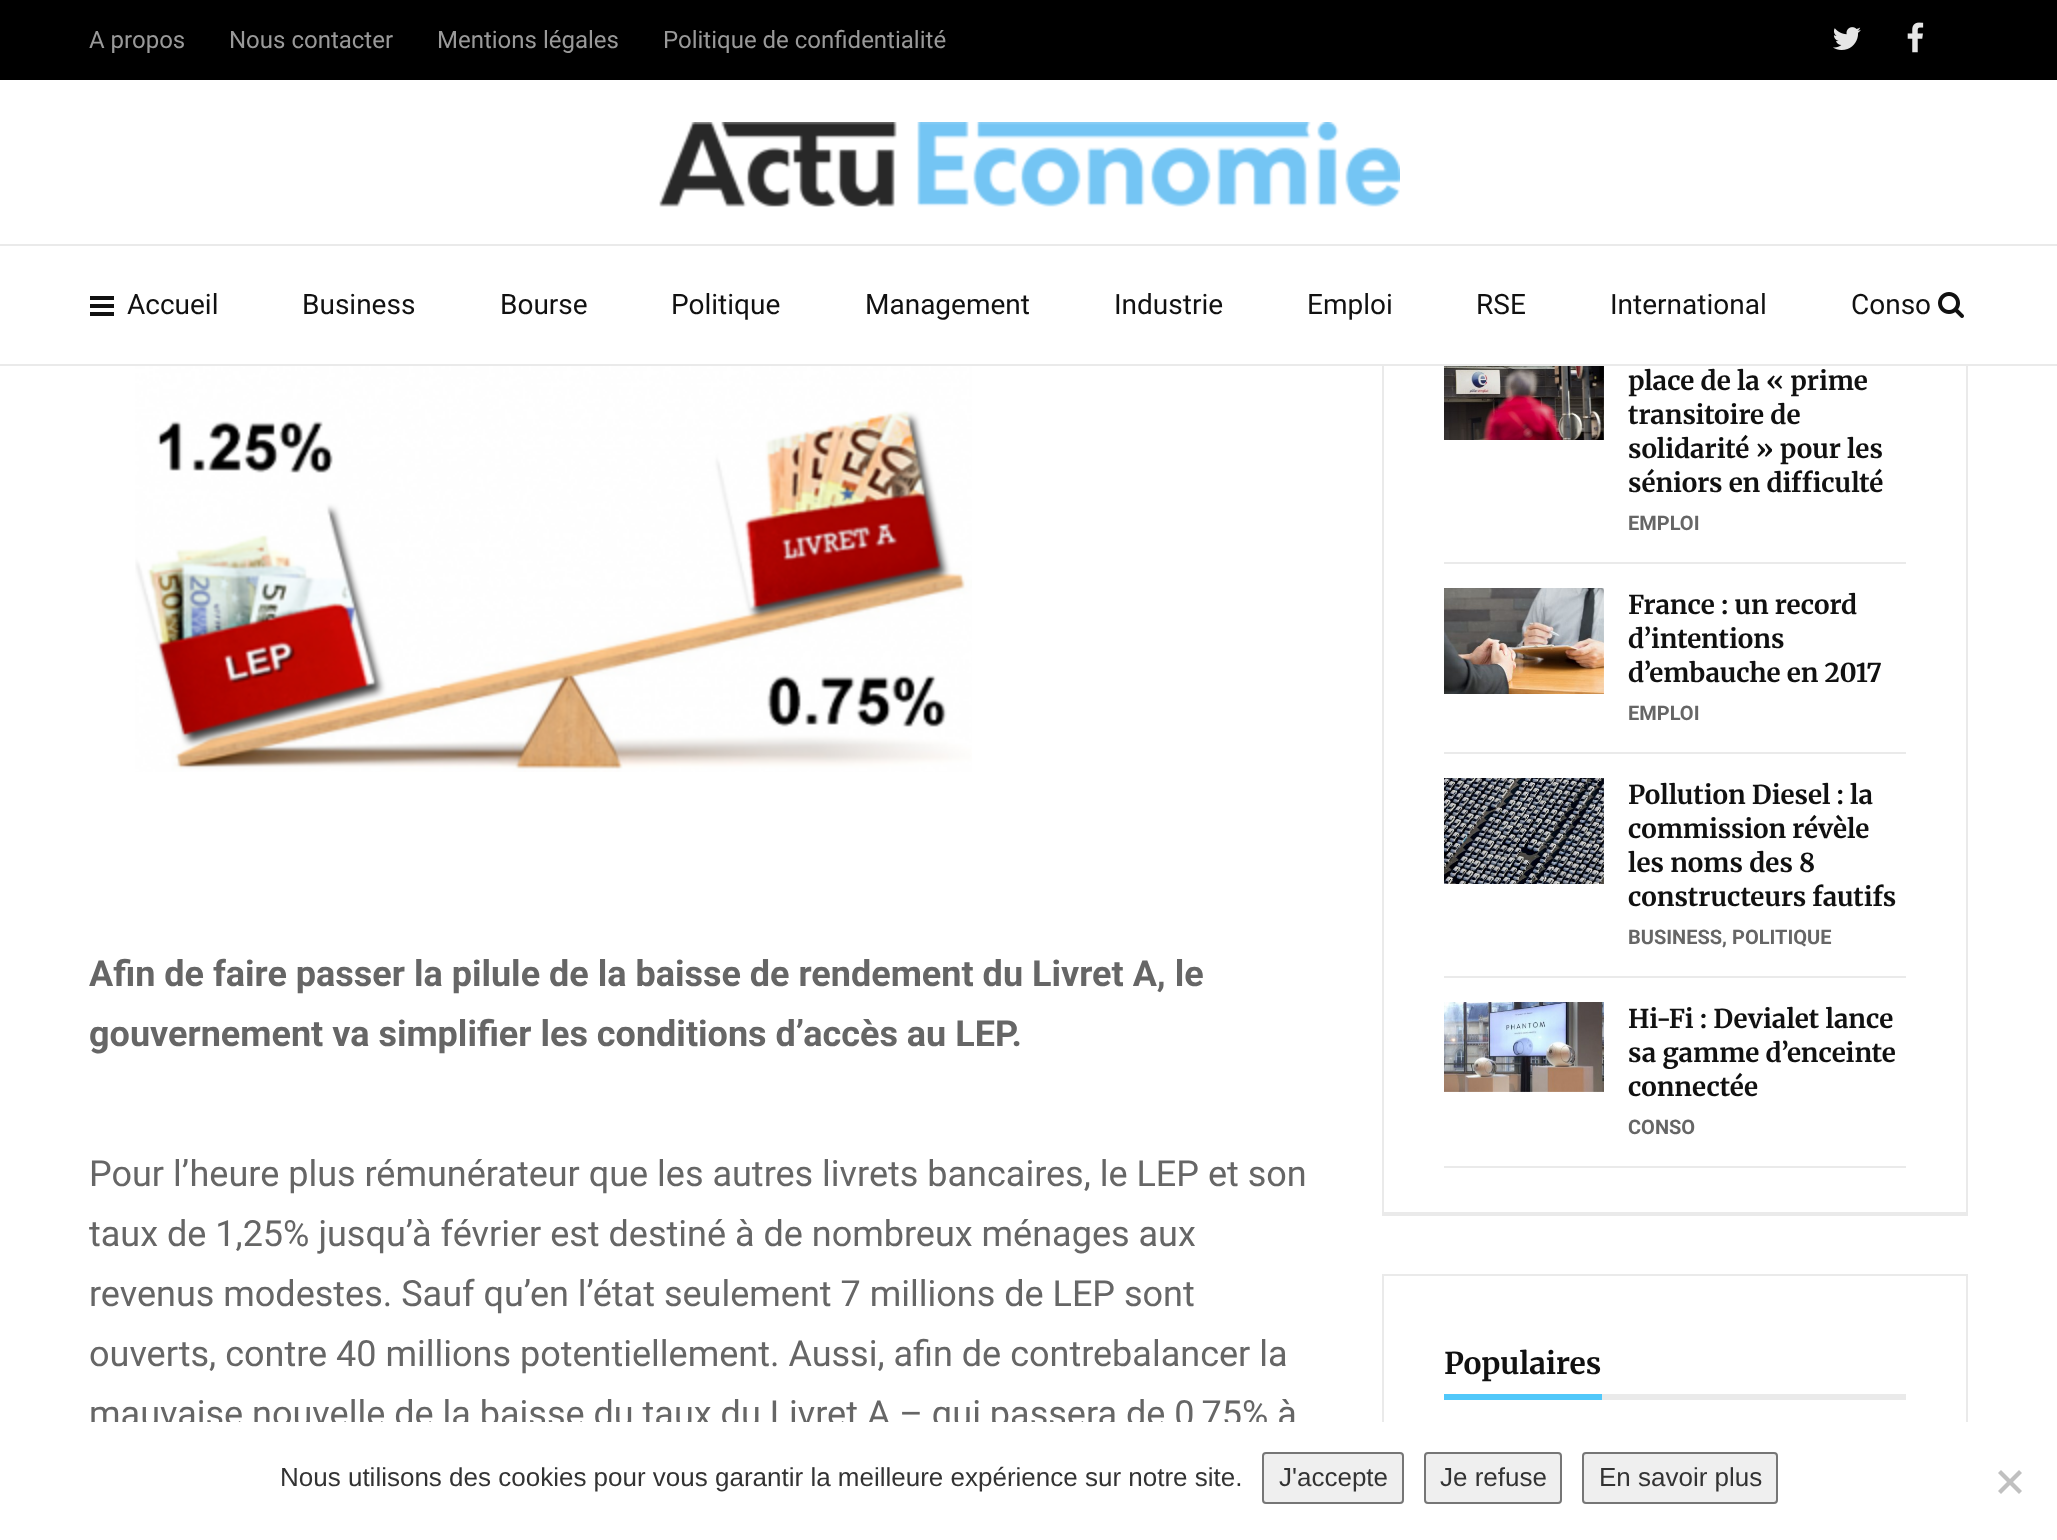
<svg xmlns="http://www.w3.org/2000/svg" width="2057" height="1540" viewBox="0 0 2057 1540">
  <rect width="100%" height="100%" fill="#ffffff"/>
  <rect x="1383" y="-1" width="584" height="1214" fill="none" stroke="#eaeaea" stroke-width="2"/>
  <rect x="1382" y="80" width="586" height="284" fill="#ffffff"/>
  <rect x="0" y="364" width="2057" height="2" fill="#eaeaea"/>
  <rect x="0" y="0" width="2057" height="80" fill="#000000"/>
  <text x="89" y="48" font-family="Roboto" font-size="24" fill="#999999">A propos</text>
  <text x="229" y="48" font-family="Roboto" font-size="24" fill="#999999">Nous contacter</text>
  <text x="437" y="48" font-family="Roboto" font-size="24" fill="#999999">Mentions légales</text>
  <text x="663" y="48" font-family="Roboto" font-size="24" fill="#999999">Politique de confidentialité</text>
  <image x="1833" y="27" width="28" height="23" href="img1.png"/>
  <image x="1907" y="22" width="17" height="31" href="img2.png"/>
  <text x="127" y="314" font-family="Roboto" font-size="28" fill="#111111">Accueil</text>
  <text x="302" y="314" font-family="Roboto" font-size="28" fill="#111111">Business</text>
  <text x="500" y="314" font-family="Roboto" font-size="28" fill="#111111">Bourse</text>
  <text x="671" y="314" font-family="Roboto" font-size="28" fill="#111111">Politique</text>
  <text x="865" y="314" font-family="Roboto" font-size="28" fill="#111111">Management</text>
  <text x="1114" y="314" font-family="Roboto" font-size="28" fill="#111111">Industrie</text>
  <text x="1307" y="314" font-family="Roboto" font-size="28" fill="#111111">Emploi</text>
  <text x="1476" y="314" font-family="Roboto" font-size="28" fill="#111111">RSE</text>
  <text x="1610" y="314" font-family="Roboto" font-size="28" fill="#111111">International</text>
  <text x="1851" y="314" font-family="Roboto" font-size="28" fill="#111111">Conso</text>
  <rect x="0" y="244" width="2057" height="2" fill="#eaeaea"/>
  <image x="659" y="122" width="741" height="85" href="img3.png"/>
  <rect x="90" y="296" width="24" height="4" fill="#111111"/>
  <rect x="90" y="304" width="24" height="4" fill="#111111"/>
  <rect x="90" y="312" width="24" height="4" fill="#111111"/>
  <image x="1938" y="292" width="26" height="26" href="img4.png"/>
  <image x="135" y="366" width="837" height="406" href="img5.png"/>
  <text x="89" y="986" font-family="Roboto" font-size="36" font-weight="bold" fill="#666666">Afin de faire passer la pilule de la baisse de rendement du Livret A, le</text>
  <text x="89" y="1046" font-family="Roboto" font-size="36" font-weight="bold" fill="#666666">gouvernement va simplifier les conditions d’accès au LEP.</text>
  <text x="89" y="1186" font-family="Roboto" font-size="36" fill="#666666">Pour l’heure plus rémunérateur que les autres livrets bancaires, le LEP et son</text>
  <text x="89" y="1246" font-family="Roboto" font-size="36" fill="#666666">taux de 1,25% jusqu’à février est destiné à de nombreux ménages aux</text>
  <text x="89" y="1306" font-family="Roboto" font-size="36" fill="#666666">revenus modestes. Sauf qu’en l’état seulement 7 millions de LEP sont</text>
  <text x="89" y="1366" font-family="Roboto" font-size="36" fill="#666666">ouverts, contre 40 millions potentiellement. Aussi, afin de contrebalancer la</text>
  <text x="89" y="1426" font-family="Roboto" font-size="36" fill="#666666">mauvaise nouvelle de la baisse du taux du Livret A – qui passera de 0,75% à</text>
  <rect x="1382" y="1214" width="586" height="2" fill="#eaeaea"/>
  <rect x="1444" y="562" width="462" height="2" fill="#eaeaea"/>
  <image x="1444" y="366" width="160" height="74" href="img6.png"/>
  <text x="1628" y="390" font-family="Merriweather" font-size="26" font-weight="300" fill="#111111">place de la « prime</text>
  <text x="1628" y="424" font-family="Merriweather" font-size="26" font-weight="300" fill="#111111">transitoire de</text>
  <text x="1628" y="458" font-family="Merriweather" font-size="26" font-weight="300" fill="#111111">solidarité » pour les</text>
  <text x="1628" y="492" font-family="Merriweather" font-size="26" font-weight="300" fill="#111111">séniors en difficulté</text>
  <text x="1628" y="530" font-family="Roboto" font-size="20" font-weight="bold" fill="#666666">EMPLOI</text>
  <rect x="1444" y="752" width="462" height="2" fill="#eaeaea"/>
  <image x="1444" y="588" width="160" height="106" href="img7.png"/>
  <text x="1628" y="614" font-family="Merriweather" font-size="26" font-weight="300" fill="#111111">France : un record</text>
  <text x="1628" y="648" font-family="Merriweather" font-size="26" font-weight="300" fill="#111111">d’intentions</text>
  <text x="1628" y="682" font-family="Merriweather" font-size="26" font-weight="300" fill="#111111">d’embauche en 2017</text>
  <text x="1628" y="720" font-family="Roboto" font-size="20" font-weight="bold" fill="#666666">EMPLOI</text>
  <rect x="1444" y="976" width="462" height="2" fill="#eaeaea"/>
  <image x="1444" y="778" width="160" height="106" href="img8.png"/>
  <text x="1628" y="804" font-family="Merriweather" font-size="26" font-weight="300" fill="#111111">Pollution Diesel : la</text>
  <text x="1628" y="838" font-family="Merriweather" font-size="26" font-weight="300" fill="#111111">commission révèle</text>
  <text x="1628" y="872" font-family="Merriweather" font-size="26" font-weight="300" fill="#111111">les noms des 8</text>
  <text x="1628" y="906" font-family="Merriweather" font-size="26" font-weight="300" fill="#111111">constructeurs fautifs</text>
  <text x="1628" y="944" font-family="Roboto" font-size="20" font-weight="bold" fill="#666666">BUSINESS, POLITIQUE</text>
  <rect x="1444" y="1166" width="462" height="2" fill="#eaeaea"/>
  <image x="1444" y="1002" width="160" height="90" href="img9.png"/>
  <text x="1628" y="1028" font-family="Merriweather" font-size="26" font-weight="300" fill="#111111">Hi-Fi : Devialet lance</text>
  <text x="1628" y="1062" font-family="Merriweather" font-size="26" font-weight="300" fill="#111111">sa gamme d’enceinte</text>
  <text x="1628" y="1096" font-family="Merriweather" font-size="26" font-weight="300" fill="#111111">connectée</text>
  <text x="1628" y="1134" font-family="Roboto" font-size="20" font-weight="bold" fill="#666666">CONSO</text>
  <rect x="1383" y="1275" width="584" height="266" fill="none" stroke="#eaeaea" stroke-width="2"/>
  <rect x="1444" y="1394" width="158" height="6" fill="#51c8fa"/>
  <text x="1444" y="1374" font-family="Merriweather" font-size="30" font-weight="300" fill="#111111">Populaires</text>
  <rect x="1602" y="1394" width="304" height="6" fill="#eaeaea"/>
  <rect x="91" y="1422" width="1877" height="118" fill="#ffffff"/>
  <text x="280" y="1486" font-family="Liberation Sans" font-size="26" fill="#333333">Nous utilisons des cookies pour vous garantir la meilleure expérience sur notre site.</text>
  <rect x="1263" y="1453" width="140" height="50" rx="3" fill="#efefef" stroke="#767676" stroke-width="2"/>
  <text x="1279" y="1486" font-family="Liberation Sans" font-size="26" fill="#333333">J'accepte</text>
  <rect x="1425" y="1453" width="136" height="50" rx="3" fill="#efefef" stroke="#767676" stroke-width="2"/>
  <text x="1440" y="1486" font-family="Liberation Sans" font-size="26" fill="#333333">Je refuse</text>
  <rect x="1583" y="1453" width="194" height="50" rx="3" fill="#efefef" stroke="#767676" stroke-width="2"/>
  <text x="1599" y="1486" font-family="Liberation Sans" font-size="26" fill="#333333">En savoir plus</text>
  <path d="M2019 1470L2022 1473L2001 1494L1998 1491Z" fill="#c0c0c0"/>
  <path d="M1998 1473L2001 1470L2022 1491L2019 1494Z" fill="#c0c0c0"/>
</svg>
